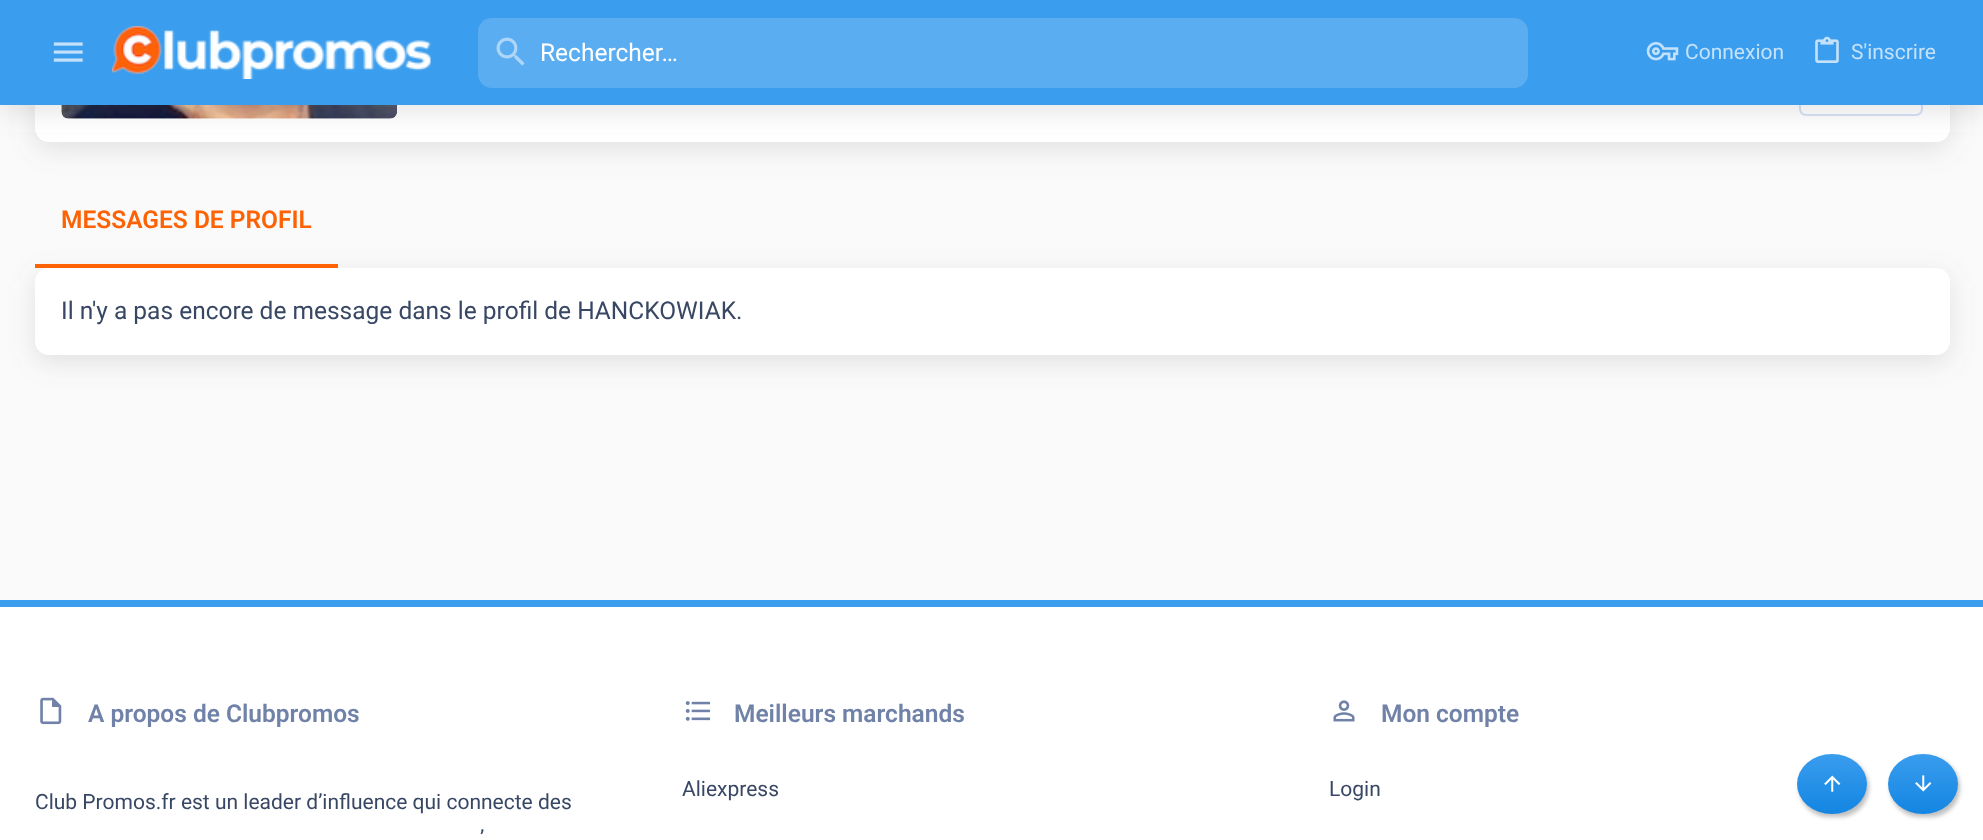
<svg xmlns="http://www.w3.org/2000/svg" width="1983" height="840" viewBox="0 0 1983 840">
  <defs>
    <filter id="blur1" x="-50%" y="-200%" width="200%" height="500%"><feGaussianBlur stdDeviation="13"/></filter>
    <filter id="blur2" x="-50%" y="-200%" width="200%" height="500%"><feGaussianBlur stdDeviation="2"/></filter>
    <linearGradient id="g1" gradientUnits="userSpaceOnUse" x1="1832" y1="754" x2="1832" y2="814"><stop offset="0" stop-color="#3a9dee"/><stop offset="1" stop-color="#1385e2"/></linearGradient>
    <linearGradient id="g2" gradientUnits="userSpaceOnUse" x1="1923" y1="754" x2="1923" y2="814"><stop offset="0" stop-color="#3a9dee"/><stop offset="1" stop-color="#1385e2"/></linearGradient>
  </defs>
  <rect width="100%" height="100%" fill="#fafafa"/>
  <rect x="35" y="-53" width="1915" height="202" rx="14" fill="#777777" fill-opacity="0.2" filter="url(#blur1)"/>
  <rect x="35" y="-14" width="1915" height="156" rx="14" fill="#ffffff"/>
  <image x="61" y="105" width="336" height="14" href="img6.png"/>
  <rect x="1800" y="64" width="122" height="51" rx="6" fill="none" stroke="#d3e1f6" stroke-width="2"/>
  <rect x="0" y="7" width="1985" height="105" fill="#777777" fill-opacity="0.2" filter="url(#blur1)"/>
  <rect x="0" y="0" width="1983" height="105" fill="#3a9dee"/>
  <image x="53" y="42" width="30" height="20" href="img1.png"/>
  <image x="112" y="26" width="319" height="53" href="img2.png"/>
  <rect x="478" y="18" width="1050" height="70" rx="14" fill="#5badf1"/>
  <image x="496" y="37" width="29" height="29" href="img3.png"/>
  <text x="540" y="61" font-family="Roboto" font-size="24.5" fill="#ffffff">Rechercher…</text>
  <image x="1646" y="42" width="33" height="19" href="img4.png"/>
  <text x="1685" y="59" font-family="Roboto" font-size="21" fill="#c4e2fa">Connexion</text>
  <image x="1815" y="36" width="24" height="27" href="img5.png"/>
  <text x="1851" y="59" font-family="Roboto" font-size="21" fill="#c4e2fa">S'inscrire</text>
  <rect x="35" y="275" width="1915" height="87" rx="14" fill="#777777" fill-opacity="0.2" filter="url(#blur1)"/>
  <rect x="35" y="264" width="303" height="4" fill="#fd6204"/>
  <text x="61" y="228" font-family="Roboto" font-size="24.5" font-weight="600" fill="#fd6204">MESSAGES DE PROFIL</text>
  <rect x="35" y="268" width="1915" height="87" rx="14" fill="#ffffff"/>
  <text x="61" y="319" font-family="Roboto" font-size="24.5" fill="#384764">Il n'y a pas encore de message dans le profil de HANCKOWIAK.</text>
  <rect x="0" y="607" width="1983" height="233" fill="#ffffff"/>
  <rect x="0" y="600" width="1983" height="7" fill="#3a9dee"/>
  <image x="40" y="697" width="22" height="28" href="img7.png"/>
  <text x="88" y="722" font-family="Roboto" font-size="24.5" font-weight="600" fill="#7082a7">A propos de Clubpromos</text>
  <text x="35" y="809" font-family="Roboto" font-size="21" fill="#384764">Club Promos.fr est un leader d’influence qui connecte des</text>
  <text x="480" y="845" font-family="Roboto" font-size="21" fill="#384764">’</text>
  <image x="685" y="701" width="26" height="20" href="img8.png"/>
  <text x="734" y="722" font-family="Roboto" font-size="24.5" font-weight="600" fill="#7082a7">Meilleurs marchands</text>
  <text x="682" y="796" font-family="Roboto" font-size="21" fill="#384764">Aliexpress</text>
  <image x="1333" y="700" width="22" height="22" href="img9.png"/>
  <text x="1381" y="722" font-family="Roboto" font-size="24.5" font-weight="600" fill="#7082a7">Mon compte</text>
  <text x="1329" y="796" font-family="Roboto" font-size="21" fill="#384764">Login</text>
  <rect x="1799" y="758" width="70" height="59" rx="29.5" fill="#000000" fill-opacity="0.25" filter="url(#blur2)"/>
  <ellipse cx="1832" cy="784" rx="35" ry="30" fill="url(#g1)"/>
  <image x="1824" y="775" width="17" height="17" href="img10.png"/>
  <rect x="1890" y="758" width="70" height="59" rx="29.5" fill="#000000" fill-opacity="0.25" filter="url(#blur2)"/>
  <ellipse cx="1923" cy="784" rx="35" ry="30" fill="url(#g2)"/>
  <image x="1915" y="775" width="17" height="17" href="img11.png"/>
</svg>
